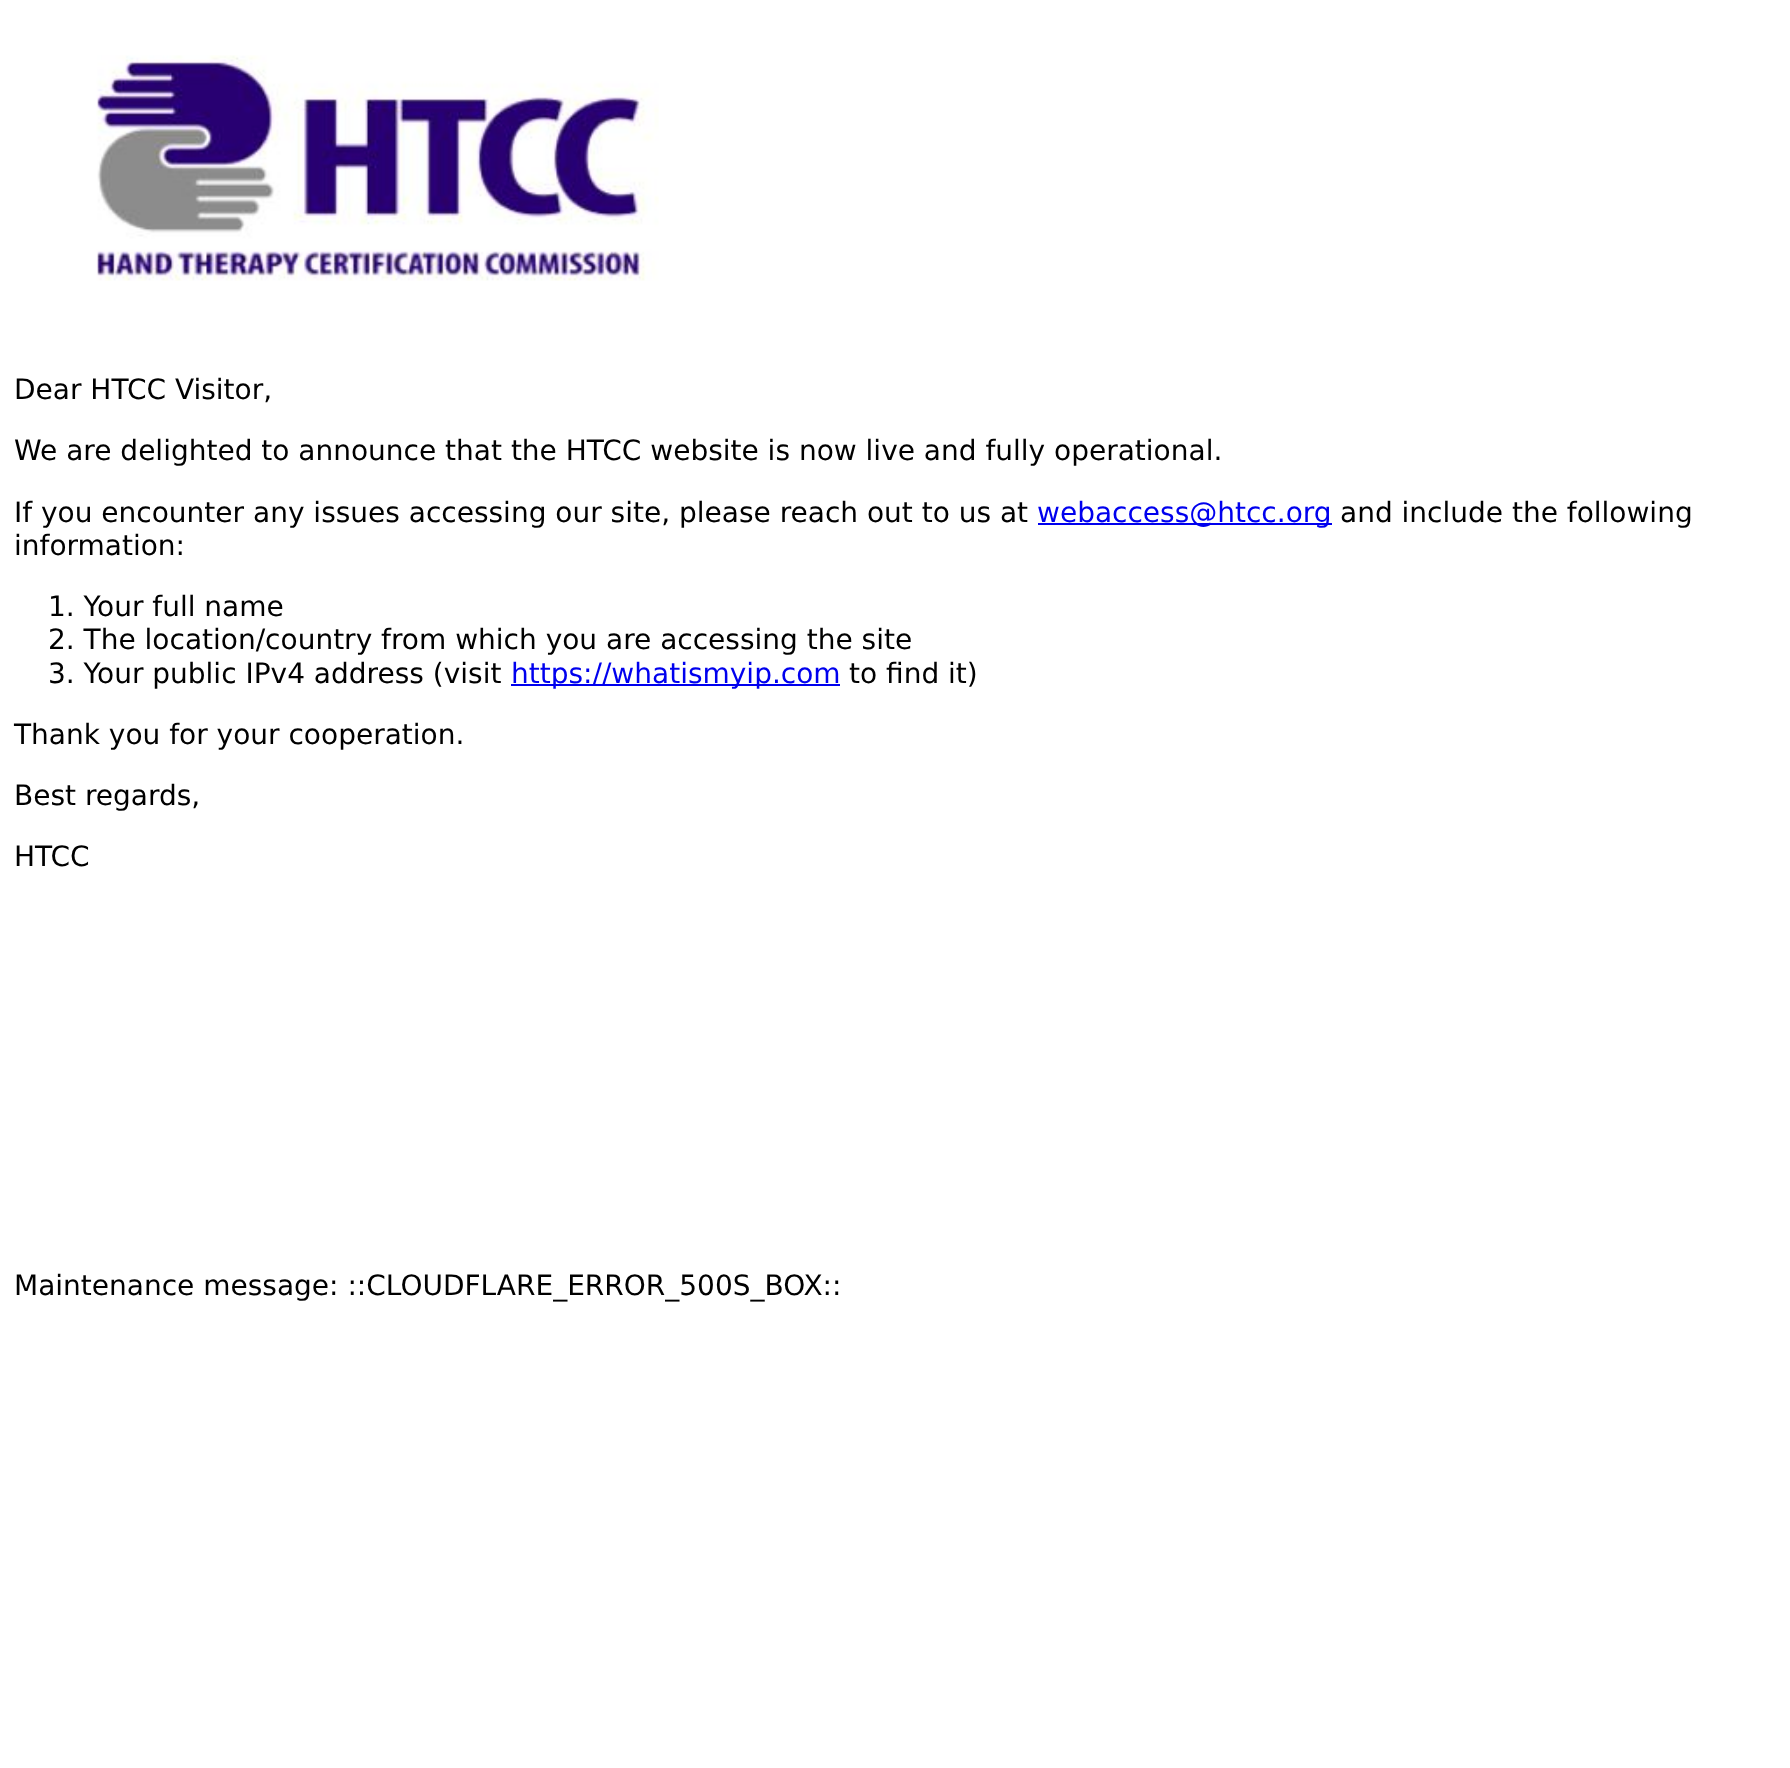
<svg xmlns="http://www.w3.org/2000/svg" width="1790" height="1768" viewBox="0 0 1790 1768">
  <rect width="100%" height="100%" fill="#ffffff"/>
  <image x="96" y="55" width="563" height="226" href="img1.png"/>
  <text x="14" y="399" font-family="DejaVu Sans" font-size="28" fill="#000000">Dear HTCC Visitor,</text>
  <text x="14" y="460" font-family="DejaVu Sans" font-size="28" fill="#000000">We are delighted to announce that the HTCC website is now live and fully operational.</text>
  <text x="14" y="522" font-family="DejaVu Sans" font-size="28" fill="#000000">If you encounter any issues accessing our site, please reach out to us at</text>
  <rect x="1038" y="523" width="294" height="2" fill="#0000ee"/>
  <text x="1037" y="522" font-family="DejaVu Sans" font-size="28" fill="#0000ee">webaccess@htcc.org</text>
  <text x="1340" y="522" font-family="DejaVu Sans" font-size="28" fill="#000000">and include the following</text>
  <text x="14" y="555" font-family="DejaVu Sans" font-size="28" fill="#000000">information:</text>
  <text x="48" y="616" font-family="DejaVu Sans" font-size="28" fill="#000000">1. Your full name</text>
  <text x="48" y="649" font-family="DejaVu Sans" font-size="28" fill="#000000">2. The location/country from which you are accessing the site</text>
  <text x="48" y="683" font-family="DejaVu Sans" font-size="28" fill="#000000">3. Your public IPv4 address (visit</text>
  <rect x="511" y="684" width="329" height="2" fill="#0000ee"/>
  <text x="511" y="683" font-family="DejaVu Sans" font-size="28" fill="#0000ee">https://whatismyip.com</text>
  <text x="849" y="683" font-family="DejaVu Sans" font-size="28" fill="#000000">to find it)</text>
  <text x="14" y="744" font-family="DejaVu Sans" font-size="28" fill="#000000">Thank you for your cooperation.</text>
  <text x="14" y="805" font-family="DejaVu Sans" font-size="28" fill="#000000">Best regards,</text>
  <text x="14" y="866" font-family="DejaVu Sans" font-size="28" fill="#000000">HTCC</text>
  <text x="14" y="1295" font-family="DejaVu Sans" font-size="28" fill="#000000">Maintenance message: ::CLOUDFLARE_ERROR_500S_BOX::</text>
</svg>
